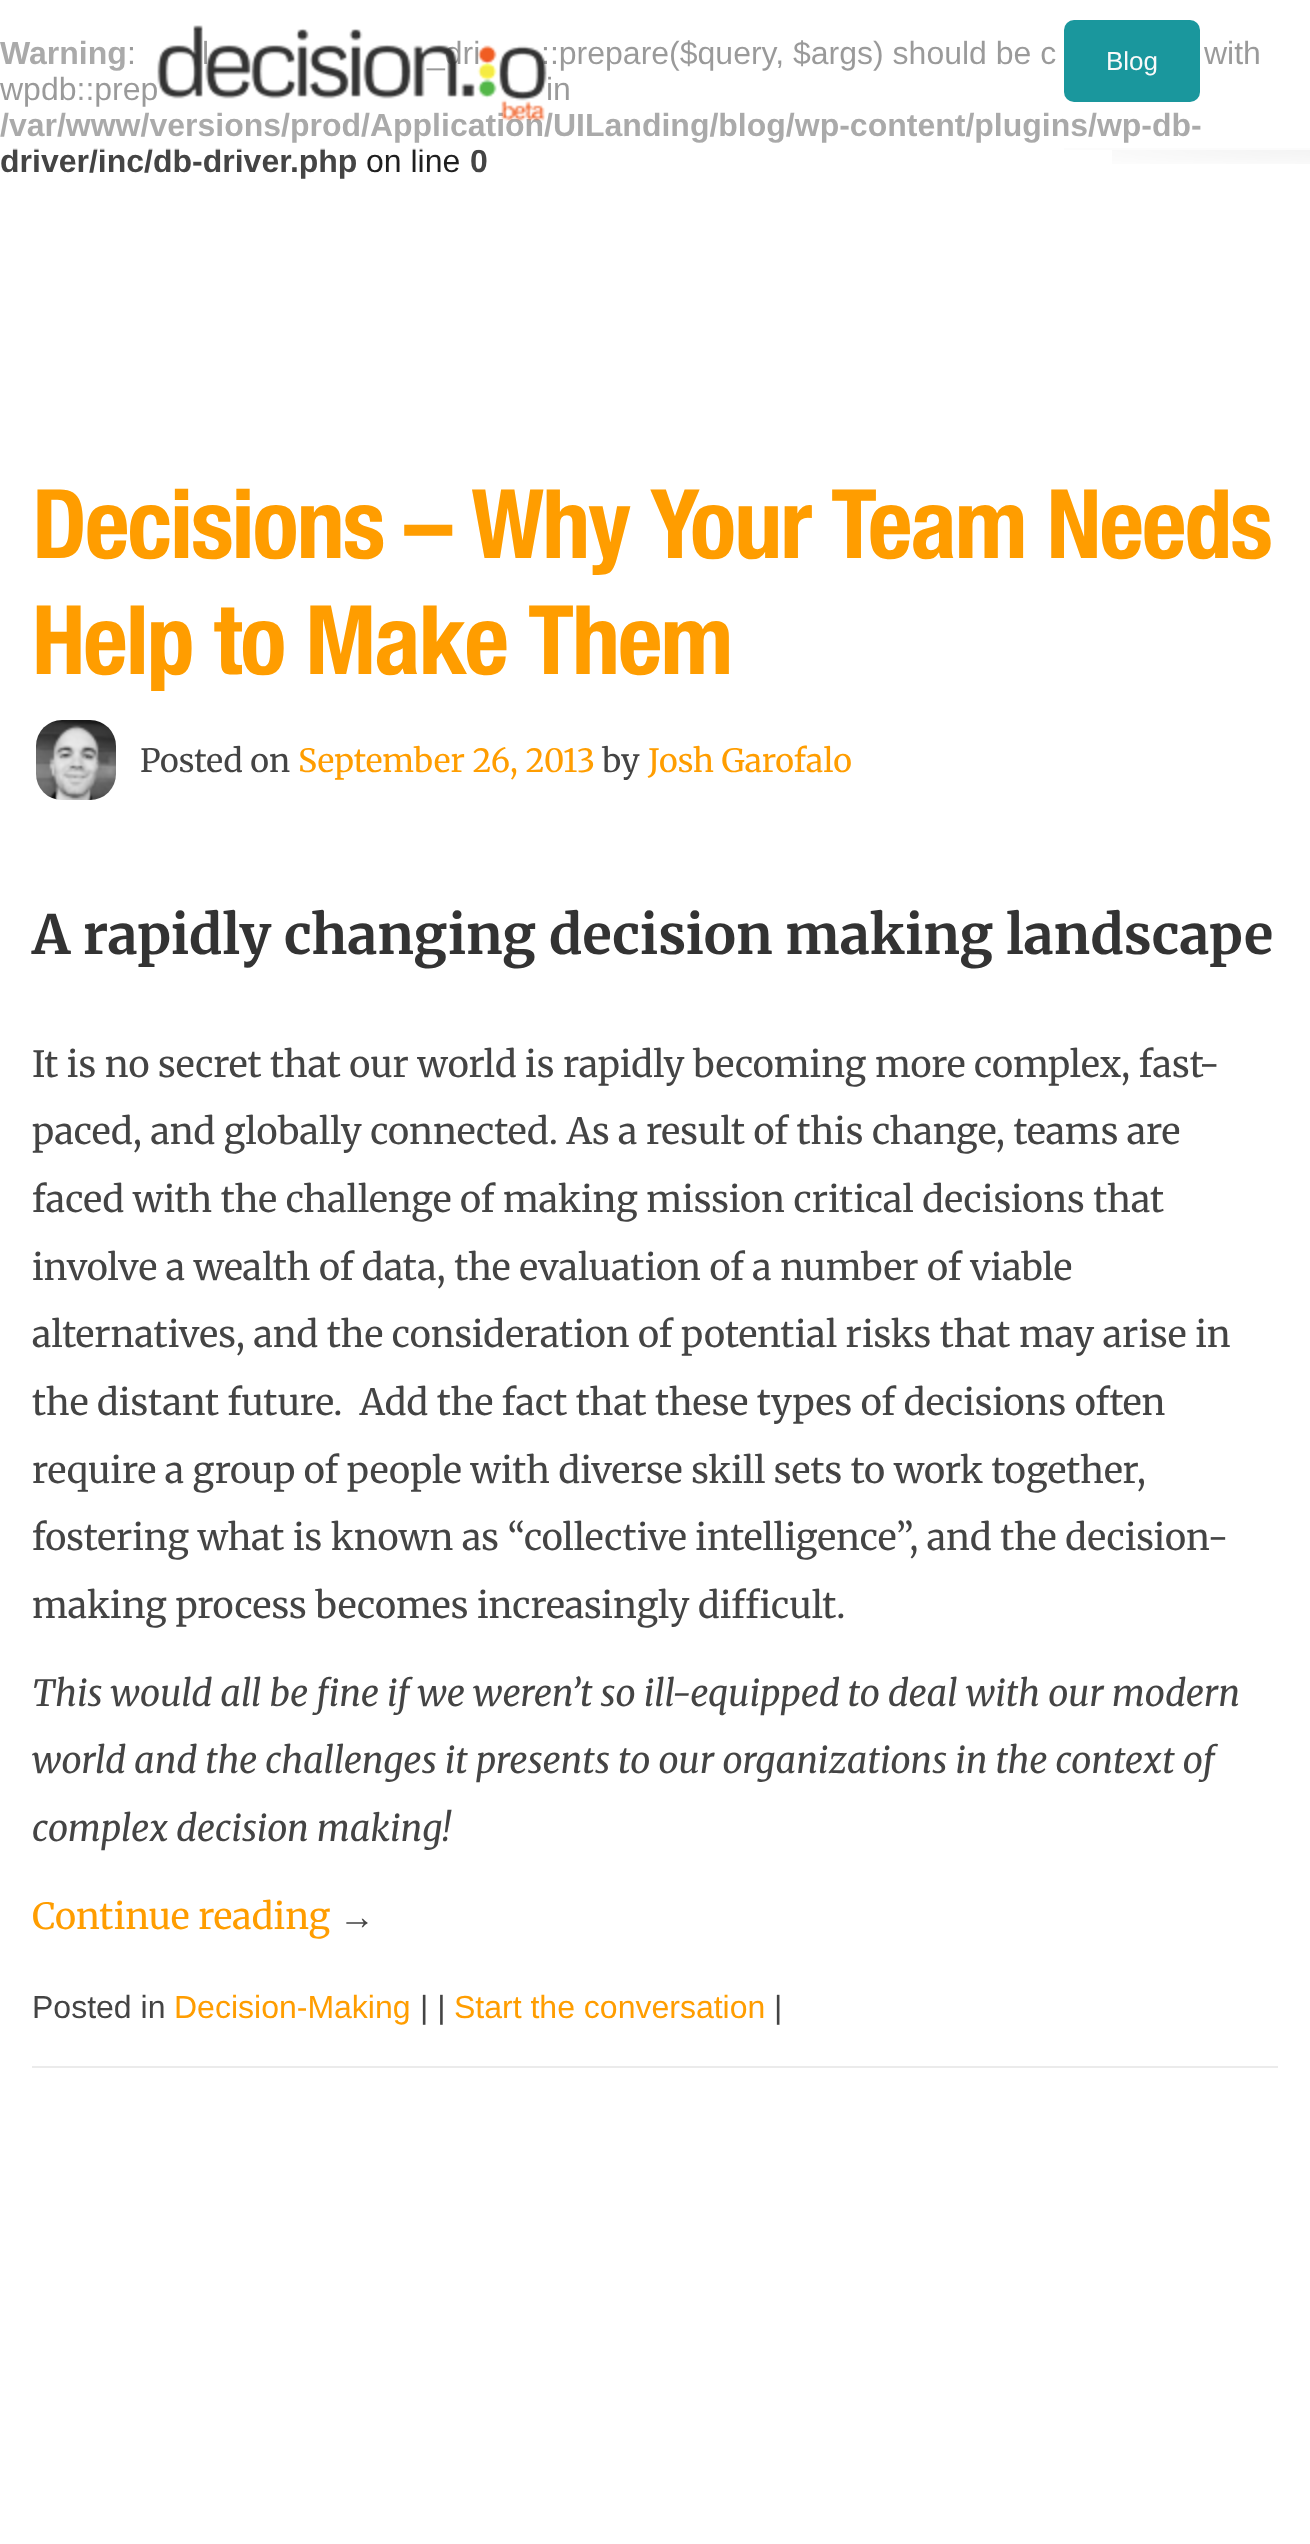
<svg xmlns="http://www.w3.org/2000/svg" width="1310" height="2544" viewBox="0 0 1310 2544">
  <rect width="100%" height="100%" fill="#ffffff"/>
  <text x="0" y="64" font-family="Liberation Sans" font-size="32" font-weight="bold" fill="#444444">Warning</text>
  <text x="127" y="64" font-family="Liberation Sans" font-size="32" fill="#1f1f1f">:</text>
  <text x="202" y="64" font-family="Liberation Sans" font-size="32" fill="#1f1f1f">l</text>
  <text x="427" y="64" font-family="Liberation Sans" font-size="32" fill="#1f1f1f">_dri</text>
  <text x="541" y="64" font-family="Liberation Sans" font-size="32" fill="#1f1f1f">::prepare($query, $args) should be c</text>
  <text x="1204" y="64" font-family="Liberation Sans" font-size="32" fill="#1f1f1f">with</text>
  <text x="0" y="100" font-family="Liberation Sans" font-size="32" fill="#1f1f1f">wpdb::prep</text>
  <text x="546" y="100" font-family="Liberation Sans" font-size="32" fill="#1f1f1f">in</text>
  <text x="0" y="136" font-family="Liberation Sans" font-size="32" font-weight="bold" fill="#444444">/var/www/versions/prod/Application/UILanding/blog/wp-content/plugins/wp-db-</text>
  <text x="0" y="172" font-family="Liberation Sans" font-size="32" font-weight="bold" fill="#444444">driver/inc/db-driver.php</text>
  <text x="366" y="172" font-family="Liberation Sans" font-size="32" fill="#1f1f1f">on line</text>
  <text x="470" y="172" font-family="Liberation Sans" font-size="32" font-weight="bold" fill="#444444">0</text>
  <rect x="0" y="40" width="1259" height="110" fill="#ffffff" fill-opacity="0.55"/>
  <image x="157" y="25" width="390" height="96" href="img1.png"/>
  <rect x="1064" y="20" width="136" height="82" rx="10" fill="#1a979d"/>
  <text x="1106" y="70" font-family="Liberation Sans" font-size="26" fill="#fafafa">Blog</text>
  <image x="1112" y="150" width="198" height="14" href="img2.png"/>
  <rect x="1064" y="148" width="246" height="2" fill="#fcfcfc"/>
  <rect x="32" y="2066" width="1246" height="2" fill="#ebebeb"/>
  <text x="32" y="558" font-family="Helvetica Neue" font-size="96" font-weight="bold" letter-spacing="-2" fill="#ff9d00">Decisions – Why Your Team Needs</text>
  <text x="32" y="674" font-family="Helvetica Neue" font-size="96" font-weight="bold" letter-spacing="-2" fill="#ff9d00">Help to Make Them</text>
  <image x="36" y="720" width="80" height="80" href="img3.png"/>
  <text x="140" y="772" font-family="Merriweather" font-size="32" fill="#444444">Posted on</text>
  <text x="298" y="772" font-family="Merriweather" font-size="32" fill="#ff9d00">September 26, 2013</text>
  <text x="602" y="772" font-family="Merriweather" font-size="32" fill="#444444">by</text>
  <text x="648" y="772" font-family="Merriweather" font-size="32" fill="#ff9d00">Josh Garofalo</text>
  <text x="32" y="954" font-family="Merriweather" font-size="54" font-weight="bold" fill="#333333">A rapidly changing decision making landscape</text>
  <text x="32" y="1077" font-family="Merriweather" font-size="36" fill="#444444">It is no secret that our world is rapidly becoming more complex, fast-</text>
  <text x="32" y="1144" font-family="Merriweather" font-size="36" fill="#444444">paced, and globally connected. As a result of this change, teams are</text>
  <text x="32" y="1212" font-family="Merriweather" font-size="36" fill="#444444">faced with the challenge of making mission critical decisions that</text>
  <text x="32" y="1280" font-family="Merriweather" font-size="36" fill="#444444">involve a wealth of data, the evaluation of a number of viable</text>
  <text x="32" y="1347" font-family="Merriweather" font-size="36" fill="#444444">alternatives, and the consideration of potential risks that may arise in</text>
  <text x="32" y="1415" font-family="Merriweather" font-size="36" fill="#444444" xml:space="preserve">the distant future.  Add the fact that these types of decisions often</text>
  <text x="32" y="1483" font-family="Merriweather" font-size="36" fill="#444444">require a group of people with diverse skill sets to work together,</text>
  <text x="32" y="1550" font-family="Merriweather" font-size="36" fill="#444444">fostering what is known as “collective intelligence”, and the decision-</text>
  <text x="32" y="1618" font-family="Merriweather" font-size="36" fill="#444444">making process becomes increasingly difficult.</text>
  <text x="32" y="1706" font-family="Merriweather" font-size="36" font-style="italic" fill="#444444">This would all be fine if we weren’t so ill-equipped to deal with our modern</text>
  <text x="32" y="1773" font-family="Merriweather" font-size="36" font-style="italic" fill="#444444">world and the challenges it presents to our organizations in the context of</text>
  <text x="32" y="1841" font-family="Merriweather" font-size="36" font-style="italic" fill="#444444">complex decision making!</text>
  <text x="32" y="1929" font-family="Merriweather" font-size="36" fill="#ff9d00">Continue reading</text>
  <text x="339" y="1929" font-family="Liberation Serif" font-size="36" fill="#444444">→</text>
  <text x="32" y="2018" font-family="Liberation Sans" font-size="32" fill="#444444">Posted in</text>
  <text x="174" y="2018" font-family="Liberation Sans" font-size="32" fill="#ff9d00">Decision-Making</text>
  <text x="420" y="2018" font-family="Liberation Sans" font-size="32" fill="#444444">| |</text>
  <text x="454" y="2018" font-family="Liberation Sans" font-size="32" fill="#ff9d00">Start the conversation</text>
  <text x="774" y="2018" font-family="Liberation Sans" font-size="32" fill="#444444">|</text>
</svg>
